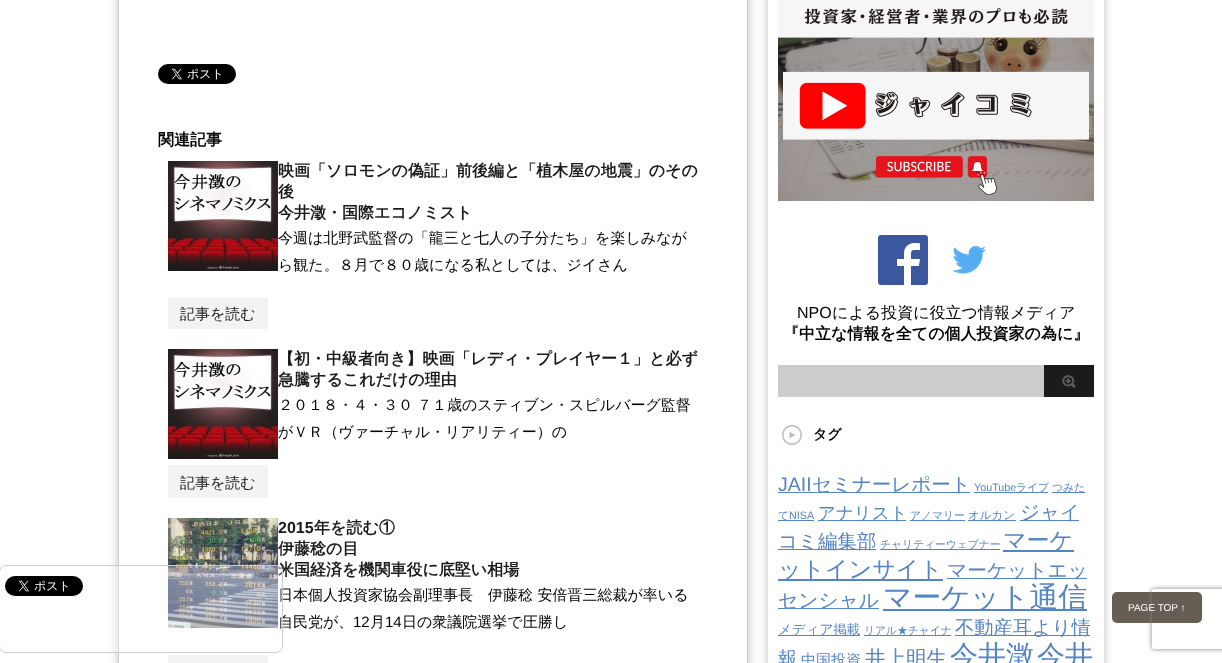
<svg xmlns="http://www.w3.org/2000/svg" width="1222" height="663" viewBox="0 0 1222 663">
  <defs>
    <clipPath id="clip1"><path d="M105 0H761V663H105ZM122-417H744C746-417 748-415 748-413V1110C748 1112 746 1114 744 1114H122C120 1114 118 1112 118 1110V-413C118-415 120-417 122-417Z" clip-rule="evenodd"/></clipPath>
    <filter id="blur1" x="-50%" y="-200%" width="200%" height="500%"><feGaussianBlur stdDeviation="3"/></filter>
    <clipPath id="clip2"><path d="M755 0H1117V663H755ZM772-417H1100C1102-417 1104-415 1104-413V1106C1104 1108 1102 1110 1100 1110H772C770 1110 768 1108 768 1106V-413C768-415 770-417 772-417Z" clip-rule="evenodd"/></clipPath>
    <clipPath id="clip3"><path d="M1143 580H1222V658H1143ZM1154 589H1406C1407 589 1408 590 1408 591V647C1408 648 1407 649 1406 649H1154C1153 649 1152 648 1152 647V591C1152 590 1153 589 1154 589Z" clip-rule="evenodd"/></clipPath>
    <filter id="blur2" x="-50%" y="-200%" width="200%" height="500%"><feGaussianBlur stdDeviation="2.5"/></filter>
  </defs>
  <rect width="100%" height="100%" fill="#ffffff"/>
  <g clip-path="url(#clip1)">
    <rect x="115" y="-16" width="636" height="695" rx="7" fill="#c9c9c9" fill-opacity="0.65" filter="url(#blur1)"/>
  </g>
  <rect x="118.5" y="-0.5" width="629" height="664" fill="none" stroke="#cccccc"/>
  <image x="168" y="518" width="110" height="110" href="img5.png"/>
  <text x="278" y="575" font-family="WenQuanYi Zen Hei" font-size="16" font-weight="bold" fill="#1a1a1a">米国経済を機関車役に底堅い相場</text>
  <text x="278" y="600" font-family="WenQuanYi Zen Hei" font-size="15" font-weight="500" fill="#000000">日本個人投資家協会副理事長　伊藤稔 安倍晋三総裁が率いる</text>
  <text x="278" y="627" font-family="WenQuanYi Zen Hei" font-size="15" font-weight="500" fill="#000000">自民党が、</text>
  <image x="114" y="565" width="169" height="88" href="img1.png"/>
  <rect x="-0.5" y="565.5" width="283" height="87" rx="6.5" fill="none" stroke="#cccccc"/>
  <image x="5" y="576" width="78" height="20" href="img2.png"/>
  <image x="158" y="64" width="78" height="20" href="img3.png"/>
  <text x="158" y="145" font-family="WenQuanYi Zen Hei" font-size="16" font-weight="bold" fill="#000000">関連記事</text>
  <image x="168" y="161" width="110" height="110" href="img4.png"/>
  <text x="278" y="176" font-family="WenQuanYi Zen Hei" font-size="16" font-weight="bold" fill="#1a1a1a">映画「ソロモンの偽証」前後編と「植木屋の地震」のその</text>
  <text x="278" y="197" font-family="WenQuanYi Zen Hei" font-size="16" font-weight="bold" fill="#1a1a1a">後</text>
  <text x="278" y="218" font-family="WenQuanYi Zen Hei" font-size="16" font-weight="bold" fill="#1a1a1a">今井澂・国際エコノミスト</text>
  <text x="278" y="243" font-family="WenQuanYi Zen Hei" font-size="15" font-weight="500" fill="#000000">今週は北野武監督の「龍三と七人の子分たち」を楽しみなが</text>
  <text x="278" y="270" font-family="WenQuanYi Zen Hei" font-size="15" font-weight="500" fill="#000000">ら観た。８月で８０歳になる私としては、ジイさん</text>
  <rect x="168" y="298" width="100" height="31" fill="#f3f3f3"/>
  <text x="180" y="319" font-family="WenQuanYi Zen Hei" font-size="15" font-weight="500" fill="#1a1a1a">記事を読む</text>
  <image x="168" y="349" width="110" height="110" href="img4.png"/>
  <text x="278" y="364" font-family="WenQuanYi Zen Hei" font-size="16" font-weight="bold" fill="#1a1a1a">【初・中級者向き】映画「レディ・プレイヤー１」と必ず</text>
  <text x="278" y="385" font-family="WenQuanYi Zen Hei" font-size="16" font-weight="bold" fill="#1a1a1a">急騰するこれだけの理由</text>
  <text x="278" y="410" font-family="WenQuanYi Zen Hei" font-size="15" font-weight="500" fill="#000000">２０１８・４・３０</text>
  <text x="417" y="410" font-family="WenQuanYi Zen Hei" font-size="15" font-weight="500" fill="#000000">７１歳のスティブン・スピルバーグ監督</text>
  <text x="278" y="437" font-family="WenQuanYi Zen Hei" font-size="15" font-weight="500" fill="#000000">がＶＲ（ヴァーチャル・リアリティー）の</text>
  <rect x="168" y="465" width="100" height="33" fill="#f3f3f3"/>
  <text x="180" y="488" font-family="WenQuanYi Zen Hei" font-size="15" font-weight="500" fill="#1a1a1a">記事を読む</text>
  <text x="278" y="533" font-family="Liberation Sans" font-size="16" font-weight="bold" fill="#1a1a1a">2015</text>
  <text x="314" y="533" font-family="WenQuanYi Zen Hei" font-size="16" font-weight="bold" fill="#1a1a1a">年を読む①</text>
  <text x="278" y="554" font-family="WenQuanYi Zen Hei" font-size="16" font-weight="bold" fill="#1a1a1a">伊藤稔の目</text>
  <text x="353" y="627" font-family="Liberation Sans" font-size="15" fill="#000000">12</text>
  <text x="370" y="627" font-family="WenQuanYi Zen Hei" font-size="15" font-weight="500" fill="#000000">月</text>
  <text x="385" y="627" font-family="Liberation Sans" font-size="15" fill="#000000">14</text>
  <text x="402" y="627" font-family="WenQuanYi Zen Hei" font-size="15" font-weight="500" fill="#000000">日の衆議院選挙で圧勝し</text>
  <rect x="168" y="655" width="100" height="8" fill="#f3f3f3"/>
  <g clip-path="url(#clip2)">
    <rect x="765" y="-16" width="342" height="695" rx="7" fill="#c9c9c9" fill-opacity="0.65" filter="url(#blur1)"/>
  </g>
  <image x="778" y="0" width="316" height="201" href="img6.png"/>
  <image x="878" y="235" width="50" height="50" href="img7.png"/>
  <image x="952" y="245" width="34" height="29" href="img8.png"/>
  <text x="797" y="318" font-family="Liberation Sans" font-size="16" fill="#000000">NPO</text>
  <text x="832" y="318" font-family="WenQuanYi Zen Hei" font-size="16" font-weight="500" fill="#000000">による投資に役立つ情報メディア</text>
  <text x="783" y="339" font-family="WenQuanYi Zen Hei" font-size="16" font-weight="bold" fill="#000000">『中立な情報を全ての個人投資家の為に』</text>
  <rect x="778" y="365" width="266" height="32" fill="#cccccc"/>
  <image x="1044" y="365" width="50" height="32" href="img9.png"/>
  <image x="782" y="425" width="20" height="20" href="img10.png"/>
  <text x="813" y="439" font-family="WenQuanYi Zen Hei" font-size="14" font-weight="bold" fill="#000000">タグ</text>
  <text x="778" y="491" font-family="Liberation Sans" font-size="19.5" fill="#5484c8">JAII</text>
  <rect x="778" y="492" width="192" height="1" fill="#5484c8"/>
  <text x="812" y="491" font-family="WenQuanYi Zen Hei" font-size="19.5" font-weight="500" fill="#5484c8">セミナーレポート</text>
  <text x="974" y="491" font-family="Liberation Sans" font-size="10.75" fill="#5484c8">YouTube</text>
  <rect x="974" y="492" width="74" height="1" fill="#5484c8"/>
  <text x="1016" y="491" font-family="WenQuanYi Zen Hei" font-size="10.75" font-weight="500" fill="#5484c8">ライブ</text>
  <rect x="1052" y="492" width="33" height="1" fill="#5484c8"/>
  <text x="1052" y="491" font-family="WenQuanYi Zen Hei" font-size="10.75" font-weight="500" fill="#5484c8">つみた</text>
  <rect x="778" y="520" width="36" height="1" fill="#5484c8"/>
  <text x="778" y="519" font-family="WenQuanYi Zen Hei" font-size="10.75" font-weight="500" fill="#5484c8">て</text>
  <text x="789" y="519" font-family="Liberation Sans" font-size="10.75" fill="#5484c8">NISA</text>
  <rect x="818" y="520" width="88" height="1" fill="#5484c8"/>
  <text x="818" y="519" font-family="WenQuanYi Zen Hei" font-size="17.5" font-weight="500" fill="#5484c8">アナリスト</text>
  <rect x="910" y="520" width="55" height="1" fill="#5484c8"/>
  <text x="910" y="519" font-family="WenQuanYi Zen Hei" font-size="10.75" font-weight="500" fill="#5484c8">アノマリー</text>
  <rect x="968" y="520" width="48" height="1" fill="#5484c8"/>
  <text x="968" y="519" font-family="WenQuanYi Zen Hei" font-size="11.5" font-weight="500" fill="#5484c8">オルカン</text>
  <rect x="1020" y="520" width="59" height="1" fill="#5484c8"/>
  <text x="1020" y="519" font-family="WenQuanYi Zen Hei" font-size="19.5" font-weight="500" fill="#5484c8">ジャイ</text>
  <rect x="778" y="549" width="98" height="1" fill="#5484c8"/>
  <text x="778" y="548" font-family="WenQuanYi Zen Hei" font-size="19.5" font-weight="500" fill="#5484c8">コミ編集部</text>
  <rect x="880" y="549" width="120" height="1" fill="#5484c8"/>
  <text x="880" y="548" font-family="WenQuanYi Zen Hei" font-size="10.75" font-weight="500" fill="#5484c8">チャリティーウェブナー</text>
  <rect x="1003" y="550" width="71" height="2" fill="#5484c8"/>
  <text x="1003" y="548" font-family="WenQuanYi Zen Hei" font-size="23" font-weight="500" fill="#5484c8">マーケ</text>
  <rect x="778" y="579" width="165" height="2" fill="#5484c8"/>
  <text x="778" y="577" font-family="WenQuanYi Zen Hei" font-size="23" font-weight="500" fill="#5484c8">ットインサイト</text>
  <rect x="947" y="578" width="140" height="1" fill="#5484c8"/>
  <text x="947" y="577" font-family="WenQuanYi Zen Hei" font-size="19.75" font-weight="500" fill="#5484c8">マーケットエッ</text>
  <rect x="778" y="608" width="101" height="1" fill="#5484c8"/>
  <text x="778" y="607" font-family="WenQuanYi Zen Hei" font-size="19.75" font-weight="500" fill="#5484c8">センシャル</text>
  <rect x="883" y="609" width="204" height="2" fill="#5484c8"/>
  <text x="883" y="607" font-family="WenQuanYi Zen Hei" font-size="28.75" font-weight="500" fill="#5484c8">マーケット通信</text>
  <rect x="778" y="635" width="82" height="1" fill="#5484c8"/>
  <text x="778" y="634" font-family="WenQuanYi Zen Hei" font-size="13.5" font-weight="500" fill="#5484c8">メディア掲載</text>
  <rect x="864" y="635" width="87" height="1" fill="#5484c8"/>
  <text x="864" y="634" font-family="WenQuanYi Zen Hei" font-size="10.75" font-weight="500" fill="#5484c8">リアル★チャイナ</text>
  <rect x="955" y="635" width="135" height="1" fill="#5484c8"/>
  <text x="955" y="634" font-family="WenQuanYi Zen Hei" font-size="19.25" font-weight="500" fill="#5484c8">不動産耳より情</text>
  <text x="778" y="665" font-family="WenQuanYi Zen Hei" font-size="19.25" font-weight="500" fill="#5484c8">報</text>
  <text x="801" y="665" font-family="WenQuanYi Zen Hei" font-size="15" font-weight="500" fill="#5484c8">中国投資</text>
  <text x="865" y="665" font-family="WenQuanYi Zen Hei" font-size="20.5" font-weight="500" fill="#5484c8">井上明生</text>
  <text x="950" y="665" font-family="WenQuanYi Zen Hei" font-size="28" font-weight="500" fill="#5484c8">今井澂</text>
  <text x="1037" y="665" font-family="WenQuanYi Zen Hei" font-size="28" font-weight="500" fill="#5484c8">今井</text>
  <rect x="1112" y="592" width="90" height="31" rx="5" fill="#665e53"/>
  <g clip-path="url(#clip3)">
    <rect x="1152" y="589" width="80" height="60" rx="2" fill="#808080" filter="url(#blur2)"/>
  </g>
  <text x="1128" y="611" font-family="Liberation Sans" font-size="10" fill="#ffffff">PAGE TOP ↑</text>
</svg>
